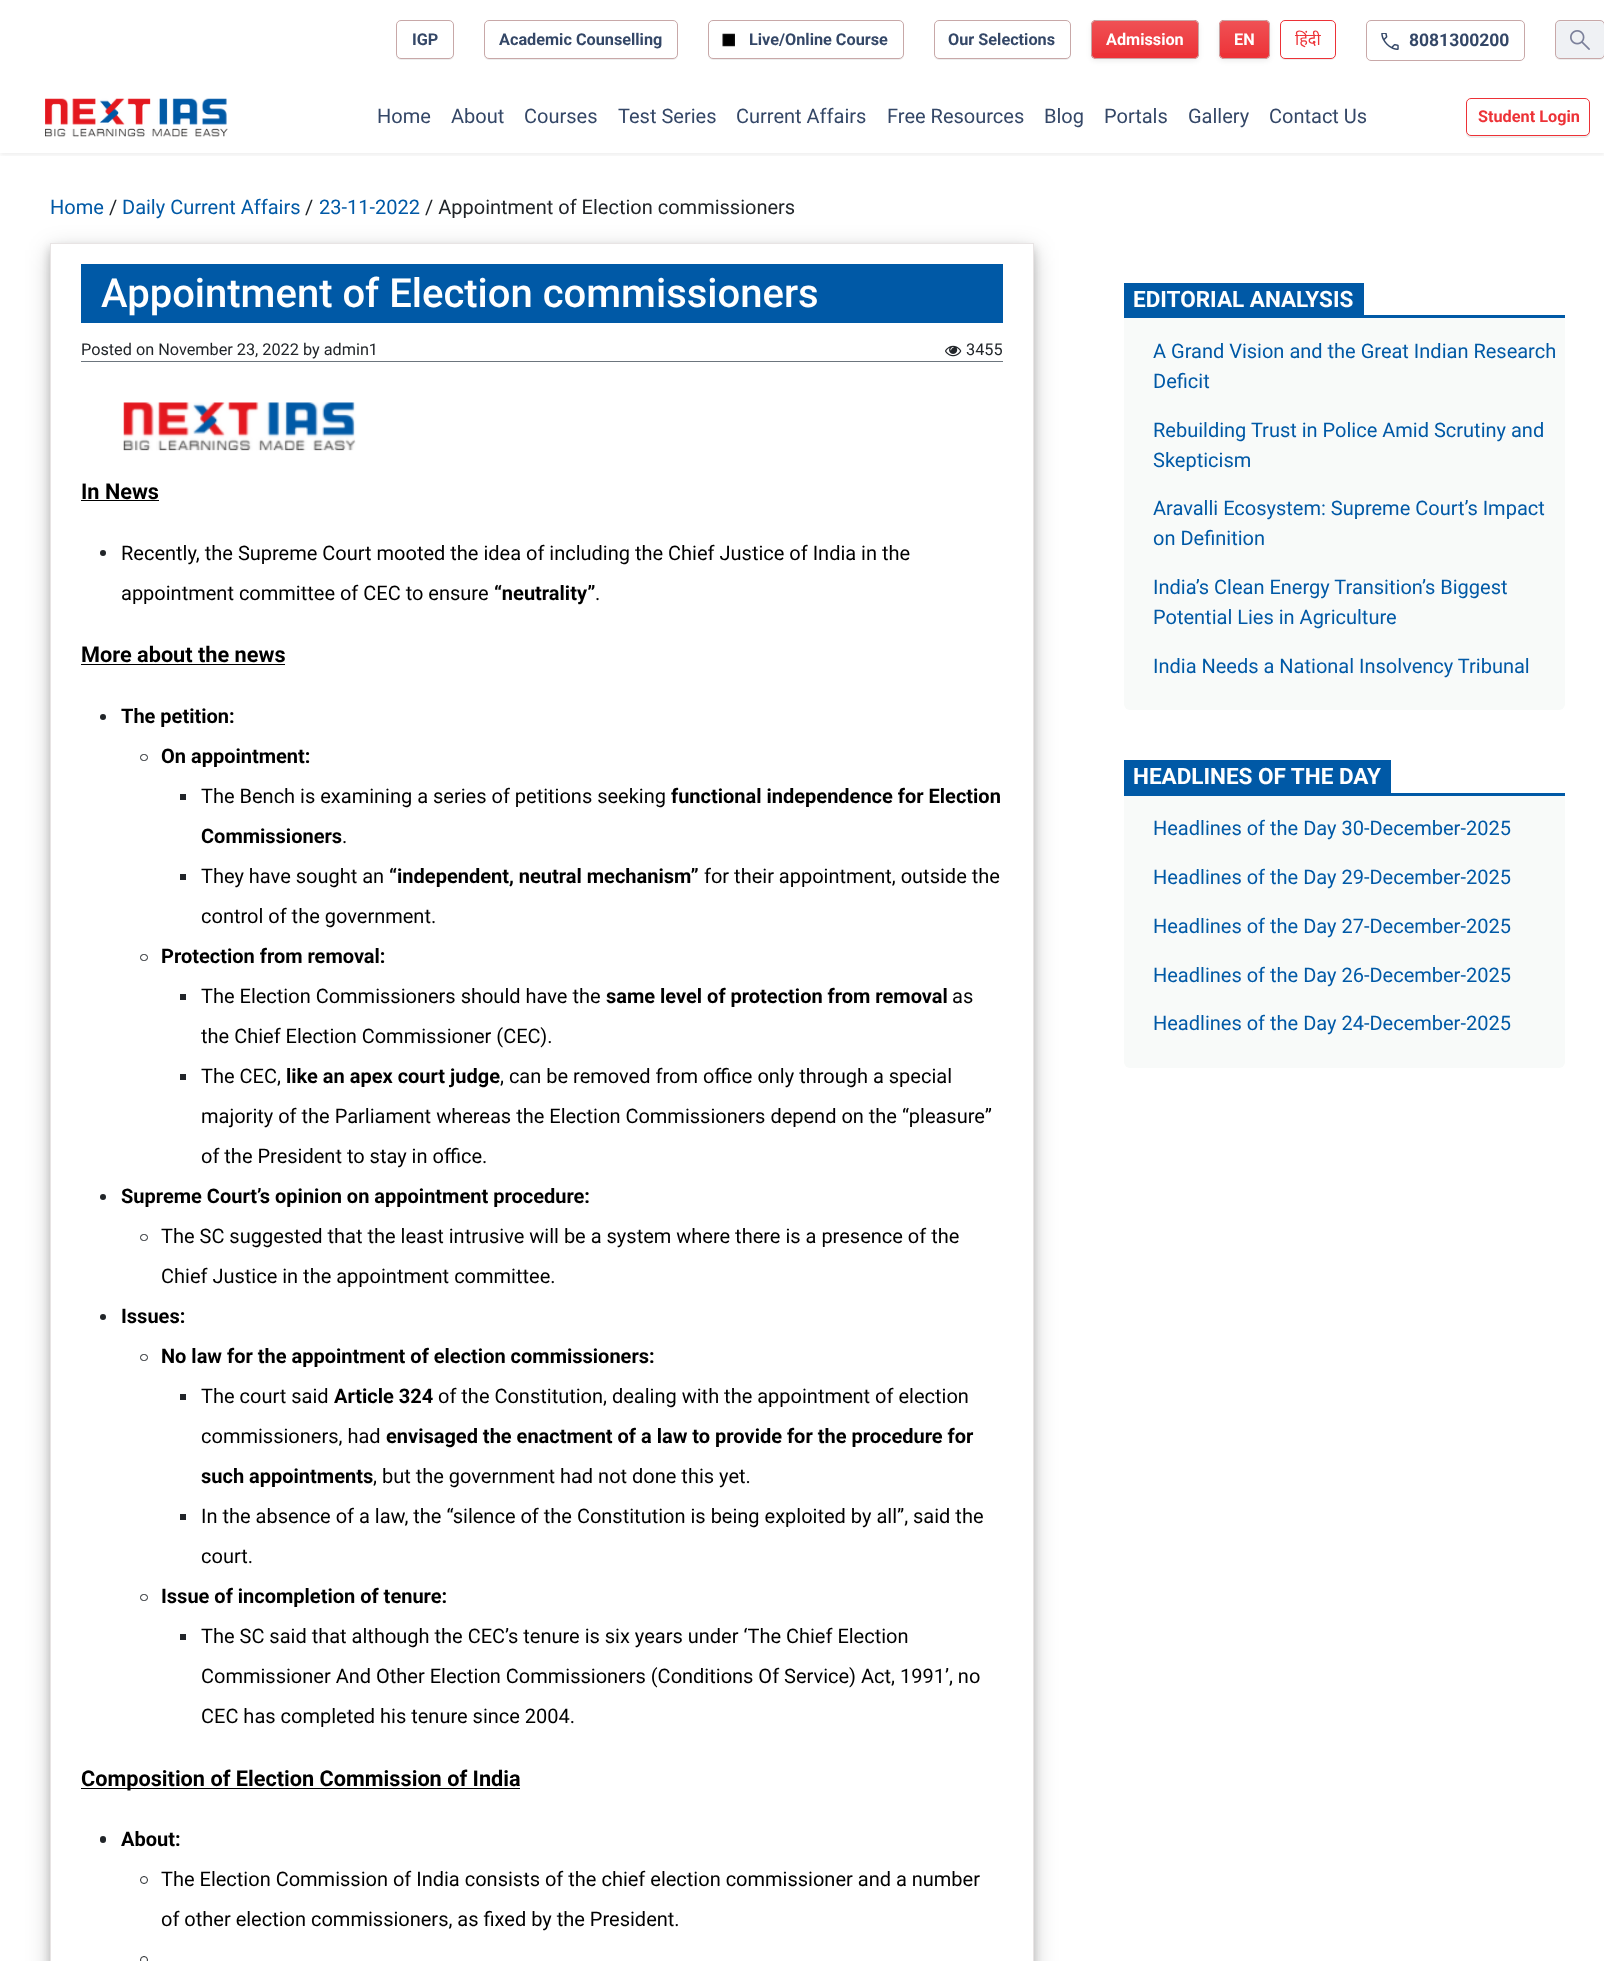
<svg xmlns="http://www.w3.org/2000/svg" width="1604" height="1961" viewBox="0 0 1604 1961">
  <defs>
    <clipPath id="clip1"><rect x="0" y="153" width="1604" height="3"/></clipPath>
    <filter id="blur1" x="-50%" y="-200%" width="200%" height="500%"><feGaussianBlur stdDeviation="2.5"/></filter>
    <filter id="blur2" x="-50%" y="-200%" width="200%" height="500%"><feGaussianBlur stdDeviation="0.5"/></filter>
    <clipPath id="clip2"><rect x="1091" y="20" width="108" height="39" rx="5"/></clipPath>
    <linearGradient id="g1" gradientUnits="userSpaceOnUse" x1="1145" y1="21" x2="1145" y2="58"><stop offset="0" stop-color="#ffffff" stop-opacity="0.15"/><stop offset="1" stop-color="#ffffff" stop-opacity="0"/></linearGradient>
    <clipPath id="clip3"><rect x="1219" y="20" width="51" height="39" rx="5"/></clipPath>
    <linearGradient id="g2" gradientUnits="userSpaceOnUse" x1="1244" y1="21" x2="1244" y2="58"><stop offset="0" stop-color="#ffffff" stop-opacity="0.15"/><stop offset="1" stop-color="#ffffff" stop-opacity="0"/></linearGradient>
    <clipPath id="clip4"><path d="M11 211H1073V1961H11ZM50 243H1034V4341H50Z" clip-rule="evenodd"/></clipPath>
    <filter id="blur3" x="-50%" y="-200%" width="200%" height="500%"><feGaussianBlur stdDeviation="12.5"/></filter>
    <clipPath id="clip5"><path d="M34 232H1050V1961H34ZM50 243H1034V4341H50Z" clip-rule="evenodd"/></clipPath>
    <filter id="blur4" x="-50%" y="-200%" width="200%" height="500%"><feGaussianBlur stdDeviation="5"/></filter>
  </defs>
  <rect width="100%" height="100%" fill="#ffffff"/>
  <g clip-path="url(#clip1)">
    <rect x="0" y="3" width="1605" height="152" fill="#000000" fill-opacity="0.07" filter="url(#blur1)"/>
  </g>
  <rect x="396" y="21" width="58" height="39" rx="5" fill="#000000" fill-opacity="0.07" filter="url(#blur2)"/>
  <rect x="396.5" y="20.5" width="57" height="38" rx="4.5" fill="#ffffff" stroke="#c8a8a8"/>
  <text x="412" y="45" font-family="Roboto" font-size="16.25" font-weight="bold" fill="#344767">IGP</text>
  <rect x="484" y="21" width="194" height="39" rx="5" fill="#000000" fill-opacity="0.07" filter="url(#blur2)"/>
  <rect x="484.5" y="20.5" width="193" height="38" rx="4.5" fill="#ffffff" stroke="#c8a8a8"/>
  <text x="499" y="45" font-family="Roboto" font-size="16.25" font-weight="bold" fill="#344767">Academic Counselling</text>
  <rect x="708" y="21" width="196" height="39" rx="5" fill="#000000" fill-opacity="0.07" filter="url(#blur2)"/>
  <rect x="708.5" y="20.5" width="195" height="38" rx="4.5" fill="#ffffff" stroke="#c8a8a8"/>
  <image x="722" y="33" width="13" height="14" href="img1.png"/>
  <text x="749" y="45" font-family="Roboto" font-size="16.25" font-weight="bold" fill="#344767">Live/Online Course</text>
  <rect x="934" y="21" width="137" height="39" rx="5" fill="#000000" fill-opacity="0.07" filter="url(#blur2)"/>
  <rect x="934.5" y="20.5" width="136" height="38" rx="4.5" fill="#ffffff" stroke="#c8a8a8"/>
  <text x="948" y="45" font-family="Roboto" font-size="16.25" font-weight="bold" fill="#344767">Our Selections</text>
  <rect x="1091" y="23" width="108" height="38" rx="5" fill="#000000" fill-opacity="0.07" filter="url(#blur1)"/>
  <rect x="1091" y="20" width="108" height="39" rx="5" fill="#ed3237"/>
  <g clip-path="url(#clip2)">
    <rect x="1091" y="21" width="108" height="32" fill="url(#g1)"/>
  </g>
  <rect x="1091.5" y="20.5" width="107" height="38" rx="4.5" fill="none" stroke="#c8a8a8"/>
  <text x="1106" y="45" font-family="Roboto" font-size="16.25" font-weight="bold" fill="#ffffff">Admission</text>
  <rect x="1219" y="23" width="51" height="38" rx="5" fill="#000000" fill-opacity="0.07" filter="url(#blur1)"/>
  <rect x="1219" y="20" width="51" height="39" rx="5" fill="#ed3237"/>
  <g clip-path="url(#clip3)">
    <rect x="1219" y="21" width="51" height="32" fill="url(#g2)"/>
  </g>
  <rect x="1219.5" y="20.5" width="50" height="38" rx="4.5" fill="none" stroke="#c8a8a8"/>
  <text x="1234" y="45" font-family="Roboto" font-size="16.25" font-weight="bold" fill="#ffffff">EN</text>
  <rect x="1280" y="21" width="56" height="39" rx="5" fill="#000000" fill-opacity="0.07" filter="url(#blur2)"/>
  <rect x="1280.5" y="20.5" width="55" height="38" rx="4.5" fill="#ffffff" stroke="#ed3237"/>
  <text x="1295" y="45" font-family="Noto Sans" font-size="16.25" fill="#ed3237">हिंदी</text>
  <rect x="1366.5" y="20.5" width="158" height="40" rx="4.5" fill="none" stroke="#c8a8a8"/>
  <image x="1381" y="33" width="18" height="17" href="img2.png"/>
  <text x="1409" y="46" font-family="Roboto" font-size="17.5" font-weight="bold" fill="#344767">8081300200</text>
  <rect x="1555" y="21" width="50" height="39" rx="5" fill="#000000" fill-opacity="0.07" filter="url(#blur2)"/>
  <rect x="1555" y="20" width="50" height="39" rx="5" fill="#eff1f4"/>
  <path d="M1560 22H1600C1602 22 1604 24 1604 26C1604 20 1598 21 1593 21H1567C1562 21 1556 20 1556 26C1556 24 1558 22 1560 22Z" fill="#f3f5f7"/>
  <rect x="1555.5" y="20.5" width="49" height="38" rx="4.5" fill="none" stroke="#c8a8a8"/>
  <image x="1570" y="30" width="20" height="20" href="img3.png"/>
  <rect x="0" y="152" width="1604" height="1" fill="#ffffff"/>
  <image x="45" y="98" width="183" height="39" href="img4.png"/>
  <text x="377" y="123" font-family="Roboto" font-size="20" fill="#344767">Home</text>
  <text x="451" y="123" font-family="Roboto" font-size="20" fill="#344767">About</text>
  <text x="524" y="123" font-family="Roboto" font-size="20" fill="#344767">Courses</text>
  <text x="618" y="123" font-family="Roboto" font-size="20" fill="#344767">Test Series</text>
  <text x="736" y="123" font-family="Roboto" font-size="20" fill="#344767">Current Affairs</text>
  <text x="887" y="123" font-family="Roboto" font-size="20" fill="#344767">Free Resources</text>
  <text x="1044" y="123" font-family="Roboto" font-size="20" fill="#344767">Blog</text>
  <text x="1104" y="123" font-family="Roboto" font-size="20" fill="#344767">Portals</text>
  <text x="1188" y="123" font-family="Roboto" font-size="20" fill="#344767">Gallery</text>
  <text x="1269" y="123" font-family="Roboto" font-size="20" fill="#344767">Contact Us</text>
  <rect x="1466" y="99" width="124" height="39" rx="5" fill="#000000" fill-opacity="0.07" filter="url(#blur2)"/>
  <rect x="1466.5" y="98.5" width="123" height="37" rx="4.5" fill="#ffffff" stroke="#ed3237"/>
  <text x="1478" y="122" font-family="Roboto" font-size="16.25" font-weight="bold" fill="#ed3237">Student Login</text>
  <text x="50" y="214" font-family="Roboto" font-size="20" fill="#0059a6">Home</text>
  <text x="109" y="214" font-family="Roboto" font-size="20" fill="#212529">/</text>
  <text x="122" y="214" font-family="Roboto" font-size="20" fill="#0059a6">Daily Current Affairs</text>
  <text x="305" y="214" font-family="Roboto" font-size="20" fill="#212529">/</text>
  <text x="319" y="214" font-family="Roboto" font-size="20" fill="#0059a6">23-11-2022</text>
  <text x="425" y="214" font-family="Roboto" font-size="20" fill="#212529">/ Appointment of Election commissioners</text>
  <g clip-path="url(#clip4)">
    <rect x="50" y="250" width="984" height="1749" fill="#000000" fill-opacity="0.19" filter="url(#blur3)"/>
  </g>
  <g clip-path="url(#clip5)">
    <rect x="50" y="248" width="984" height="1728" fill="#000000" fill-opacity="0.2" filter="url(#blur4)"/>
  </g>
  <rect x="50.5" y="243.5" width="983" height="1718" fill="none" stroke="#e8e4e4"/>
  <rect x="81" y="264" width="922" height="59" fill="#0059a6"/>
  <text x="101" y="307" font-family="Roboto" font-size="40" font-weight="500" fill="#ffffff">Appointment of Election commissioners</text>
  <rect x="81" y="361" width="922" height="1" fill="#6c757d"/>
  <text x="81" y="355" font-family="Roboto" font-size="16.25" fill="#212529">Posted on November 23, 2022 by admin1</text>
  <image x="945" y="345" width="17" height="12" href="img5.png"/>
  <text x="966" y="355" font-family="Roboto" font-size="16.25" fill="#212529">3455</text>
  <image x="123" y="402" width="233" height="49" href="img6.png"/>
  <text x="81" y="499" font-family="Roboto" font-size="21.7" font-weight="bold" fill="#000000">In News</text>
  <rect x="81" y="500" width="78" height="1" fill="#000000"/>
  <circle cx="103" cy="553" r="3" fill="#212529"/>
  <text x="121" y="560" font-family="Roboto" font-size="20" fill="#000000">Recently, the Supreme Court mooted the idea of including the Chief Justice of India in the</text>
  <text x="121" y="600" font-family="Roboto" font-size="20" fill="#000000">appointment committee of CEC to ensure</text>
  <text x="494" y="600" font-family="Roboto" font-size="20" font-weight="bold" fill="#000000">“neutrality”</text>
  <text x="595" y="600" font-family="Roboto" font-size="20" fill="#000000">.</text>
  <text x="81" y="662" font-family="Roboto" font-size="21.7" font-weight="bold" fill="#000000">More about the news</text>
  <rect x="81" y="664" width="204" height="1" fill="#000000"/>
  <circle cx="103" cy="717" r="3" fill="#212529"/>
  <text x="121" y="723" font-family="Roboto" font-size="20" font-weight="bold" fill="#000000">The petition:</text>
  <rect x="140.5" y="754.5" width="7" height="6" rx="3" fill="none" stroke="#212529"/>
  <text x="161" y="763" font-family="Roboto" font-size="20" font-weight="bold" fill="#000000">On appointment:</text>
  <rect x="180" y="794" width="6" height="6" fill="#212529"/>
  <text x="201" y="803" font-family="Roboto" font-size="20" fill="#000000">The Bench is examining a series of petitions seeking</text>
  <text x="671" y="803" font-family="Roboto" font-size="20" font-weight="bold" fill="#000000">functional independence for Election</text>
  <text x="201" y="843" font-family="Roboto" font-size="20" font-weight="bold" fill="#000000">Commissioners</text>
  <text x="342" y="843" font-family="Roboto" font-size="20" fill="#000000">.</text>
  <rect x="180" y="874" width="6" height="6" fill="#212529"/>
  <text x="201" y="883" font-family="Roboto" font-size="20" fill="#000000">They have sought an</text>
  <text x="389" y="883" font-family="Roboto" font-size="20" font-weight="bold" fill="#000000">“independent, neutral mechanism”</text>
  <text x="704" y="883" font-family="Roboto" font-size="20" fill="#000000">for their appointment, outside the</text>
  <text x="201" y="923" font-family="Roboto" font-size="20" fill="#000000">control of the government.</text>
  <rect x="140.5" y="954.5" width="7" height="6" rx="3" fill="none" stroke="#212529"/>
  <text x="161" y="963" font-family="Roboto" font-size="20" font-weight="bold" fill="#000000">Protection from removal:</text>
  <rect x="180" y="994" width="6" height="6" fill="#212529"/>
  <text x="201" y="1003" font-family="Roboto" font-size="20" fill="#000000">The Election Commissioners should have the</text>
  <text x="606" y="1003" font-family="Roboto" font-size="20" font-weight="bold" fill="#000000">same level of protection from removal</text>
  <text x="952" y="1003" font-family="Roboto" font-size="20" fill="#000000">as</text>
  <text x="201" y="1043" font-family="Roboto" font-size="20" fill="#000000">the Chief Election Commissioner (CEC).</text>
  <rect x="180" y="1074" width="6" height="6" fill="#212529"/>
  <text x="201" y="1083" font-family="Roboto" font-size="20" fill="#000000">The CEC,</text>
  <text x="286" y="1083" font-family="Roboto" font-size="20" font-weight="bold" fill="#000000">like an apex court judge</text>
  <text x="500" y="1083" font-family="Roboto" font-size="20" fill="#000000">, can be removed from office only through a special</text>
  <text x="201" y="1123" font-family="Roboto" font-size="20" fill="#000000">majority of the Parliament whereas the Election Commissioners depend on the “pleasure”</text>
  <text x="201" y="1163" font-family="Roboto" font-size="20" fill="#000000">of the President to stay in office.</text>
  <circle cx="103" cy="1197" r="3" fill="#212529"/>
  <text x="121" y="1203" font-family="Roboto" font-size="20" font-weight="bold" fill="#000000">Supreme Court’s opinion on appointment procedure:</text>
  <rect x="140.5" y="1234.5" width="7" height="6" rx="3" fill="none" stroke="#212529"/>
  <text x="161" y="1243" font-family="Roboto" font-size="20" fill="#000000">The SC suggested that the least intrusive will be a system where there is a presence of the</text>
  <text x="161" y="1283" font-family="Roboto" font-size="20" fill="#000000">Chief Justice in the appointment committee.</text>
  <circle cx="103" cy="1317" r="3" fill="#212529"/>
  <text x="121" y="1323" font-family="Roboto" font-size="20" font-weight="bold" fill="#000000">Issues:</text>
  <rect x="140.5" y="1354.5" width="7" height="6" rx="3" fill="none" stroke="#212529"/>
  <text x="161" y="1363" font-family="Roboto" font-size="20" font-weight="bold" fill="#000000">No law for the appointment of election commissioners:</text>
  <rect x="180" y="1394" width="6" height="6" fill="#212529"/>
  <text x="201" y="1403" font-family="Roboto" font-size="20" fill="#000000">The court said</text>
  <text x="334" y="1403" font-family="Roboto" font-size="20" font-weight="bold" fill="#000000">Article 324</text>
  <text x="438" y="1403" font-family="Roboto" font-size="20" fill="#000000">of the Constitution, dealing with the appointment of election</text>
  <text x="201" y="1443" font-family="Roboto" font-size="20" fill="#000000">commissioners, had</text>
  <text x="386" y="1443" font-family="Roboto" font-size="20" font-weight="bold" fill="#000000">envisaged the enactment of a law to provide for the procedure for</text>
  <text x="201" y="1483" font-family="Roboto" font-size="20" font-weight="bold" fill="#000000">such appointments</text>
  <text x="373" y="1483" font-family="Roboto" font-size="20" fill="#000000">, but the government had not done this yet.</text>
  <rect x="180" y="1514" width="6" height="6" fill="#212529"/>
  <text x="201" y="1523" font-family="Roboto" font-size="20" fill="#000000">In the absence of a law, the “silence of the Constitution is being exploited by all”, said the</text>
  <text x="201" y="1563" font-family="Roboto" font-size="20" fill="#000000">court.</text>
  <rect x="140.5" y="1594.5" width="7" height="6" rx="3" fill="none" stroke="#212529"/>
  <text x="161" y="1603" font-family="Roboto" font-size="20" font-weight="bold" fill="#000000">Issue of incompletion of tenure:</text>
  <rect x="180" y="1634" width="6" height="6" fill="#212529"/>
  <text x="201" y="1643" font-family="Roboto" font-size="20" fill="#000000">The SC said that although the CEC’s tenure is six years under ‘The Chief Election</text>
  <text x="201" y="1683" font-family="Roboto" font-size="20" fill="#000000">Commissioner And Other Election Commissioners (Conditions Of Service) Act, 1991’, no</text>
  <text x="201" y="1723" font-family="Roboto" font-size="20" fill="#000000">CEC has completed his tenure since 2004.</text>
  <rect x="81" y="1788" width="439" height="1" fill="#000000"/>
  <text x="81" y="1786" font-family="Roboto" font-size="21.7" font-weight="bold" fill="#000000">Composition of Election Commission of India</text>
  <rect x="100" y="1836" width="6" height="7" rx="3" fill="#212529"/>
  <text x="121" y="1846" font-family="Roboto" font-size="20" font-weight="bold" fill="#000000">About:</text>
  <circle cx="144" cy="1880" r="3.5" fill="none" stroke="#212529"/>
  <text x="161" y="1886" font-family="Roboto" font-size="20" fill="#000000">The Election Commission of India consists of the chief election commissioner and a number</text>
  <text x="161" y="1926" font-family="Roboto" font-size="20" fill="#000000">of other election commissioners, as fixed by the President.</text>
  <circle cx="144" cy="1960" r="3.5" fill="none" stroke="#212529"/>
  <rect x="1124" y="283" width="441" height="427" rx="6" fill="#f8faf9"/>
  <rect x="1364" y="283" width="201" height="32" fill="#ffffff"/>
  <rect x="1124" y="315" width="441" height="3" fill="#0059a6"/>
  <rect x="1124" y="283" width="240" height="32" fill="#0059a6"/>
  <text x="1133" y="307" font-family="Roboto" font-size="22.5" font-weight="bold" fill="#ffffff">EDITORIAL ANALYSIS</text>
  <text x="1153" y="358" font-family="Roboto" font-size="20" fill="#0059a6">A Grand Vision and the Great Indian Research</text>
  <text x="1153" y="388" font-family="Roboto" font-size="20" fill="#0059a6">Deficit</text>
  <text x="1153" y="437" font-family="Roboto" font-size="20" fill="#0059a6">Rebuilding Trust in Police Amid Scrutiny and</text>
  <text x="1153" y="467" font-family="Roboto" font-size="20" fill="#0059a6">Skepticism</text>
  <text x="1153" y="515" font-family="Roboto" font-size="20" fill="#0059a6">Aravalli Ecosystem: Supreme Court’s Impact</text>
  <text x="1153" y="545" font-family="Roboto" font-size="20" fill="#0059a6">on Definition</text>
  <text x="1153" y="594" font-family="Roboto" font-size="20" fill="#0059a6">India’s Clean Energy Transition’s Biggest</text>
  <text x="1153" y="624" font-family="Roboto" font-size="20" fill="#0059a6">Potential Lies in Agriculture</text>
  <text x="1153" y="673" font-family="Roboto" font-size="20" fill="#0059a6">India Needs a National Insolvency Tribunal</text>
  <rect x="1124" y="760" width="441" height="308" rx="6" fill="#f8faf9"/>
  <rect x="1391" y="760" width="174" height="33" fill="#ffffff"/>
  <rect x="1124" y="793" width="441" height="3" fill="#0059a6"/>
  <rect x="1124" y="760" width="267" height="33" fill="#0059a6"/>
  <text x="1133" y="784" font-family="Roboto" font-size="22.5" font-weight="bold" fill="#ffffff">HEADLINES OF THE DAY</text>
  <text x="1153" y="835" font-family="Roboto" font-size="20" fill="#0059a6">Headlines of the Day 30-December-2025</text>
  <text x="1153" y="884" font-family="Roboto" font-size="20" fill="#0059a6">Headlines of the Day 29-December-2025</text>
  <text x="1153" y="933" font-family="Roboto" font-size="20" fill="#0059a6">Headlines of the Day 27-December-2025</text>
  <text x="1153" y="982" font-family="Roboto" font-size="20" fill="#0059a6">Headlines of the Day 26-December-2025</text>
  <text x="1153" y="1030" font-family="Roboto" font-size="20" fill="#0059a6">Headlines of the Day 24-December-2025</text>
</svg>
